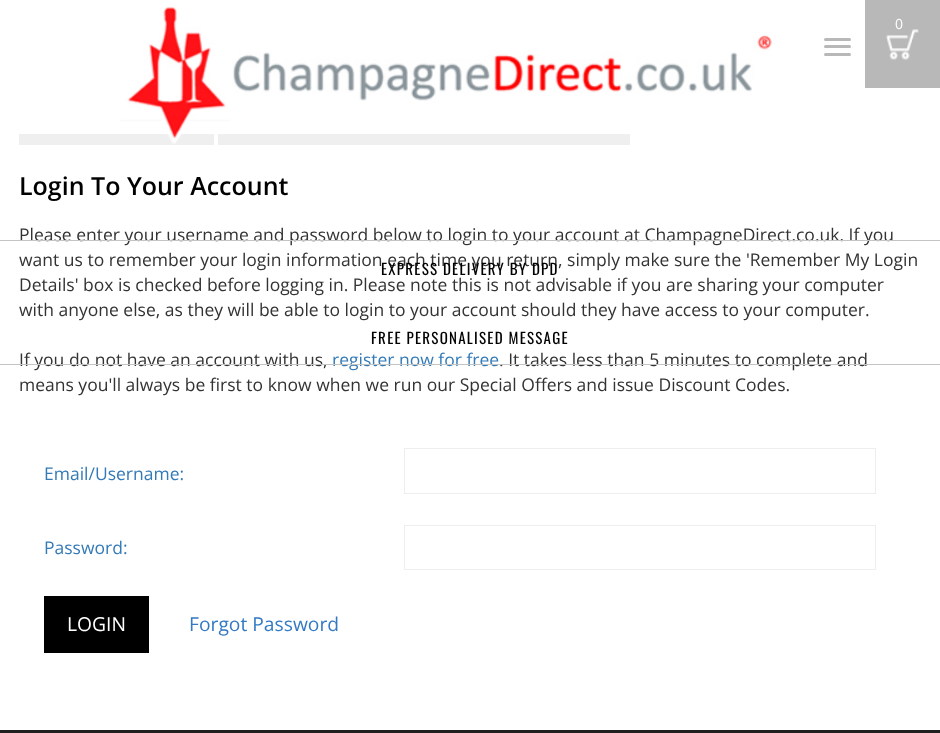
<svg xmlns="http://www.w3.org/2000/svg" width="940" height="733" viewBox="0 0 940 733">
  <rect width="100%" height="100%" fill="#ffffff"/>
  <rect x="19" y="134" width="195" height="11" fill="#efefef"/>
  <rect x="218" y="134" width="412" height="11" fill="#efefef"/>
  <image x="119" y="7" width="653" height="137" href="img1.png"/>
  <rect x="865" y="0" width="75" height="88" fill="#b8b8b8"/>
  <image x="886" y="29" width="33" height="31" href="img2.png"/>
  <text x="895" y="29" font-family="Open Sans" font-size="14" fill="#ffffff">0</text>
  <rect x="824" y="38" width="27" height="3" rx="1.5" fill="#b8b8b8"/>
  <rect x="824" y="45" width="27" height="3" rx="1.5" fill="#b8b8b8"/>
  <rect x="824" y="53" width="27" height="3" rx="1.5" fill="#b8b8b8"/>
  <text x="19" y="241" font-family="Open Sans" font-size="17.5" fill="#333333">Please enter your username and password below to login to your account at ChampagneDirect.co.uk. If you</text>
  <rect x="0" y="240" width="940" height="1" fill="#c4c4c4"/>
  <text x="19" y="366" font-family="Open Sans" font-size="17.5" fill="#333333">If you do not have an account with us,</text>
  <text x="332" y="366" font-family="Open Sans" font-size="17.5" fill="#337ab7">register now for free</text>
  <text x="499" y="366" font-family="Open Sans" font-size="17.5" fill="#333333">. It takes less than 5 minutes to complete and</text>
  <rect x="0" y="364" width="940" height="1" fill="#c4c4c4"/>
  <text x="19" y="266" font-family="Open Sans" font-size="17.5" fill="#333333">want us to remember your login information each time you return, simply make sure the 'Remember My Login</text>
  <text x="381" y="275" font-family="Oswald" font-size="15" letter-spacing="1.25" fill="#000000">EXPRESS DELIVERY BY DPD</text>
  <text x="371" y="344" font-family="Oswald" font-size="15" letter-spacing="1.25" fill="#000000">FREE PERSONALISED MESSAGE</text>
  <text x="19" y="195" font-family="Open Sans" font-size="25" font-weight="600" fill="#000000">Login To Your Account</text>
  <text x="19" y="291" font-family="Open Sans" font-size="17.5" fill="#333333">Details' box is checked before logging in. Please note this is not advisable if you are sharing your computer</text>
  <text x="19" y="316" font-family="Open Sans" font-size="17.5" fill="#333333">with anyone else, as they will be able to login to your account should they have access to your computer.</text>
  <text x="19" y="391" font-family="Open Sans" font-size="17.5" fill="#333333">means you'll always be first to know when we run our Special Offers and issue Discount Codes.</text>
  <text x="44" y="480" font-family="Open Sans" font-size="17.5" fill="#337ab7">Email/Username:</text>
  <rect x="404.5" y="448.5" width="471" height="45" fill="none" stroke="#eeeeee"/>
  <text x="44" y="554" font-family="Open Sans" font-size="17.5" fill="#337ab7">Password:</text>
  <rect x="404.5" y="525.5" width="471" height="44" fill="none" stroke="#eeeeee"/>
  <rect x="44" y="596" width="105" height="57" fill="#000000"/>
  <text x="67" y="631" font-family="Open Sans" font-size="19.25" fill="#ffffff">LOGIN</text>
  <text x="189" y="631" font-family="Open Sans" font-size="19.25" fill="#337ac4">Forgot Password</text>
  <rect x="0" y="730" width="940" height="3" fill="#1f1f1f"/>
</svg>
